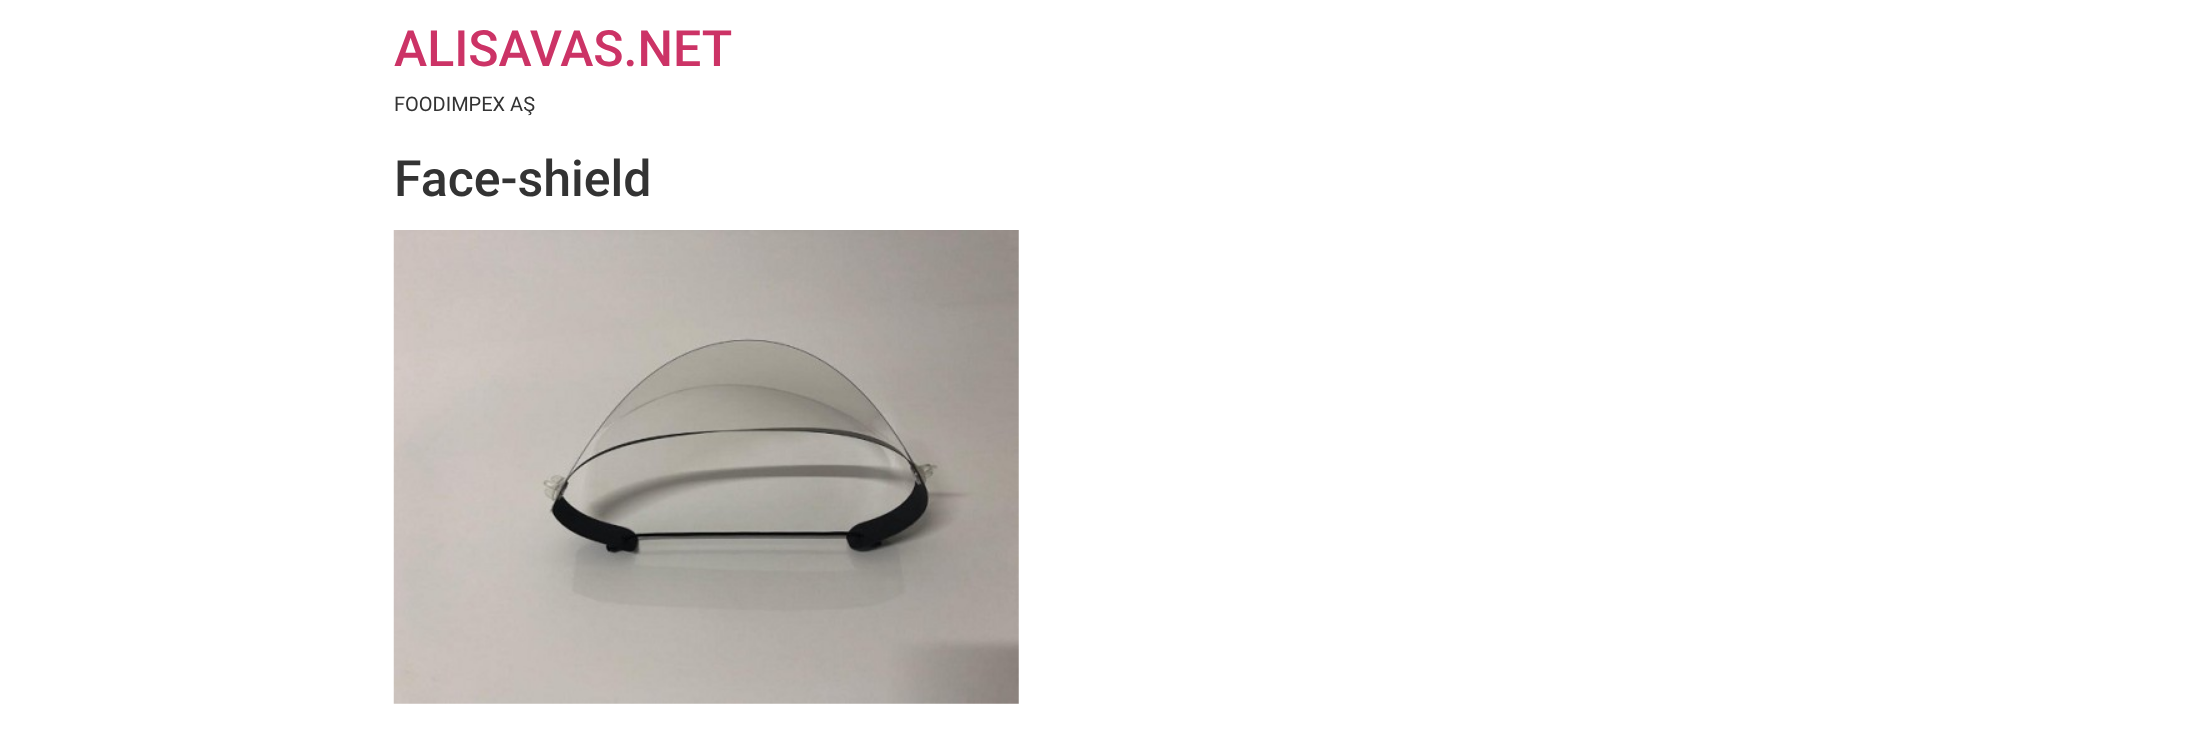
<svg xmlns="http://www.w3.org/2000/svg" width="2212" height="738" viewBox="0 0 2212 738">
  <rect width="100%" height="100%" fill="#ffffff"/>
  <text x="394" y="66" font-family="Roboto" font-size="50" font-weight="500" fill="#cc3366">ALISAVAS.NET</text>
  <text x="394" y="111" font-family="Roboto" font-size="20" fill="#333333">FOODIMPEX AŞ</text>
  <text x="394" y="196" font-family="Roboto" font-size="50" font-weight="500" fill="#333333">Face-shield</text>
  <image x="393" y="230" width="626" height="474" href="img1.png"/>
</svg>
